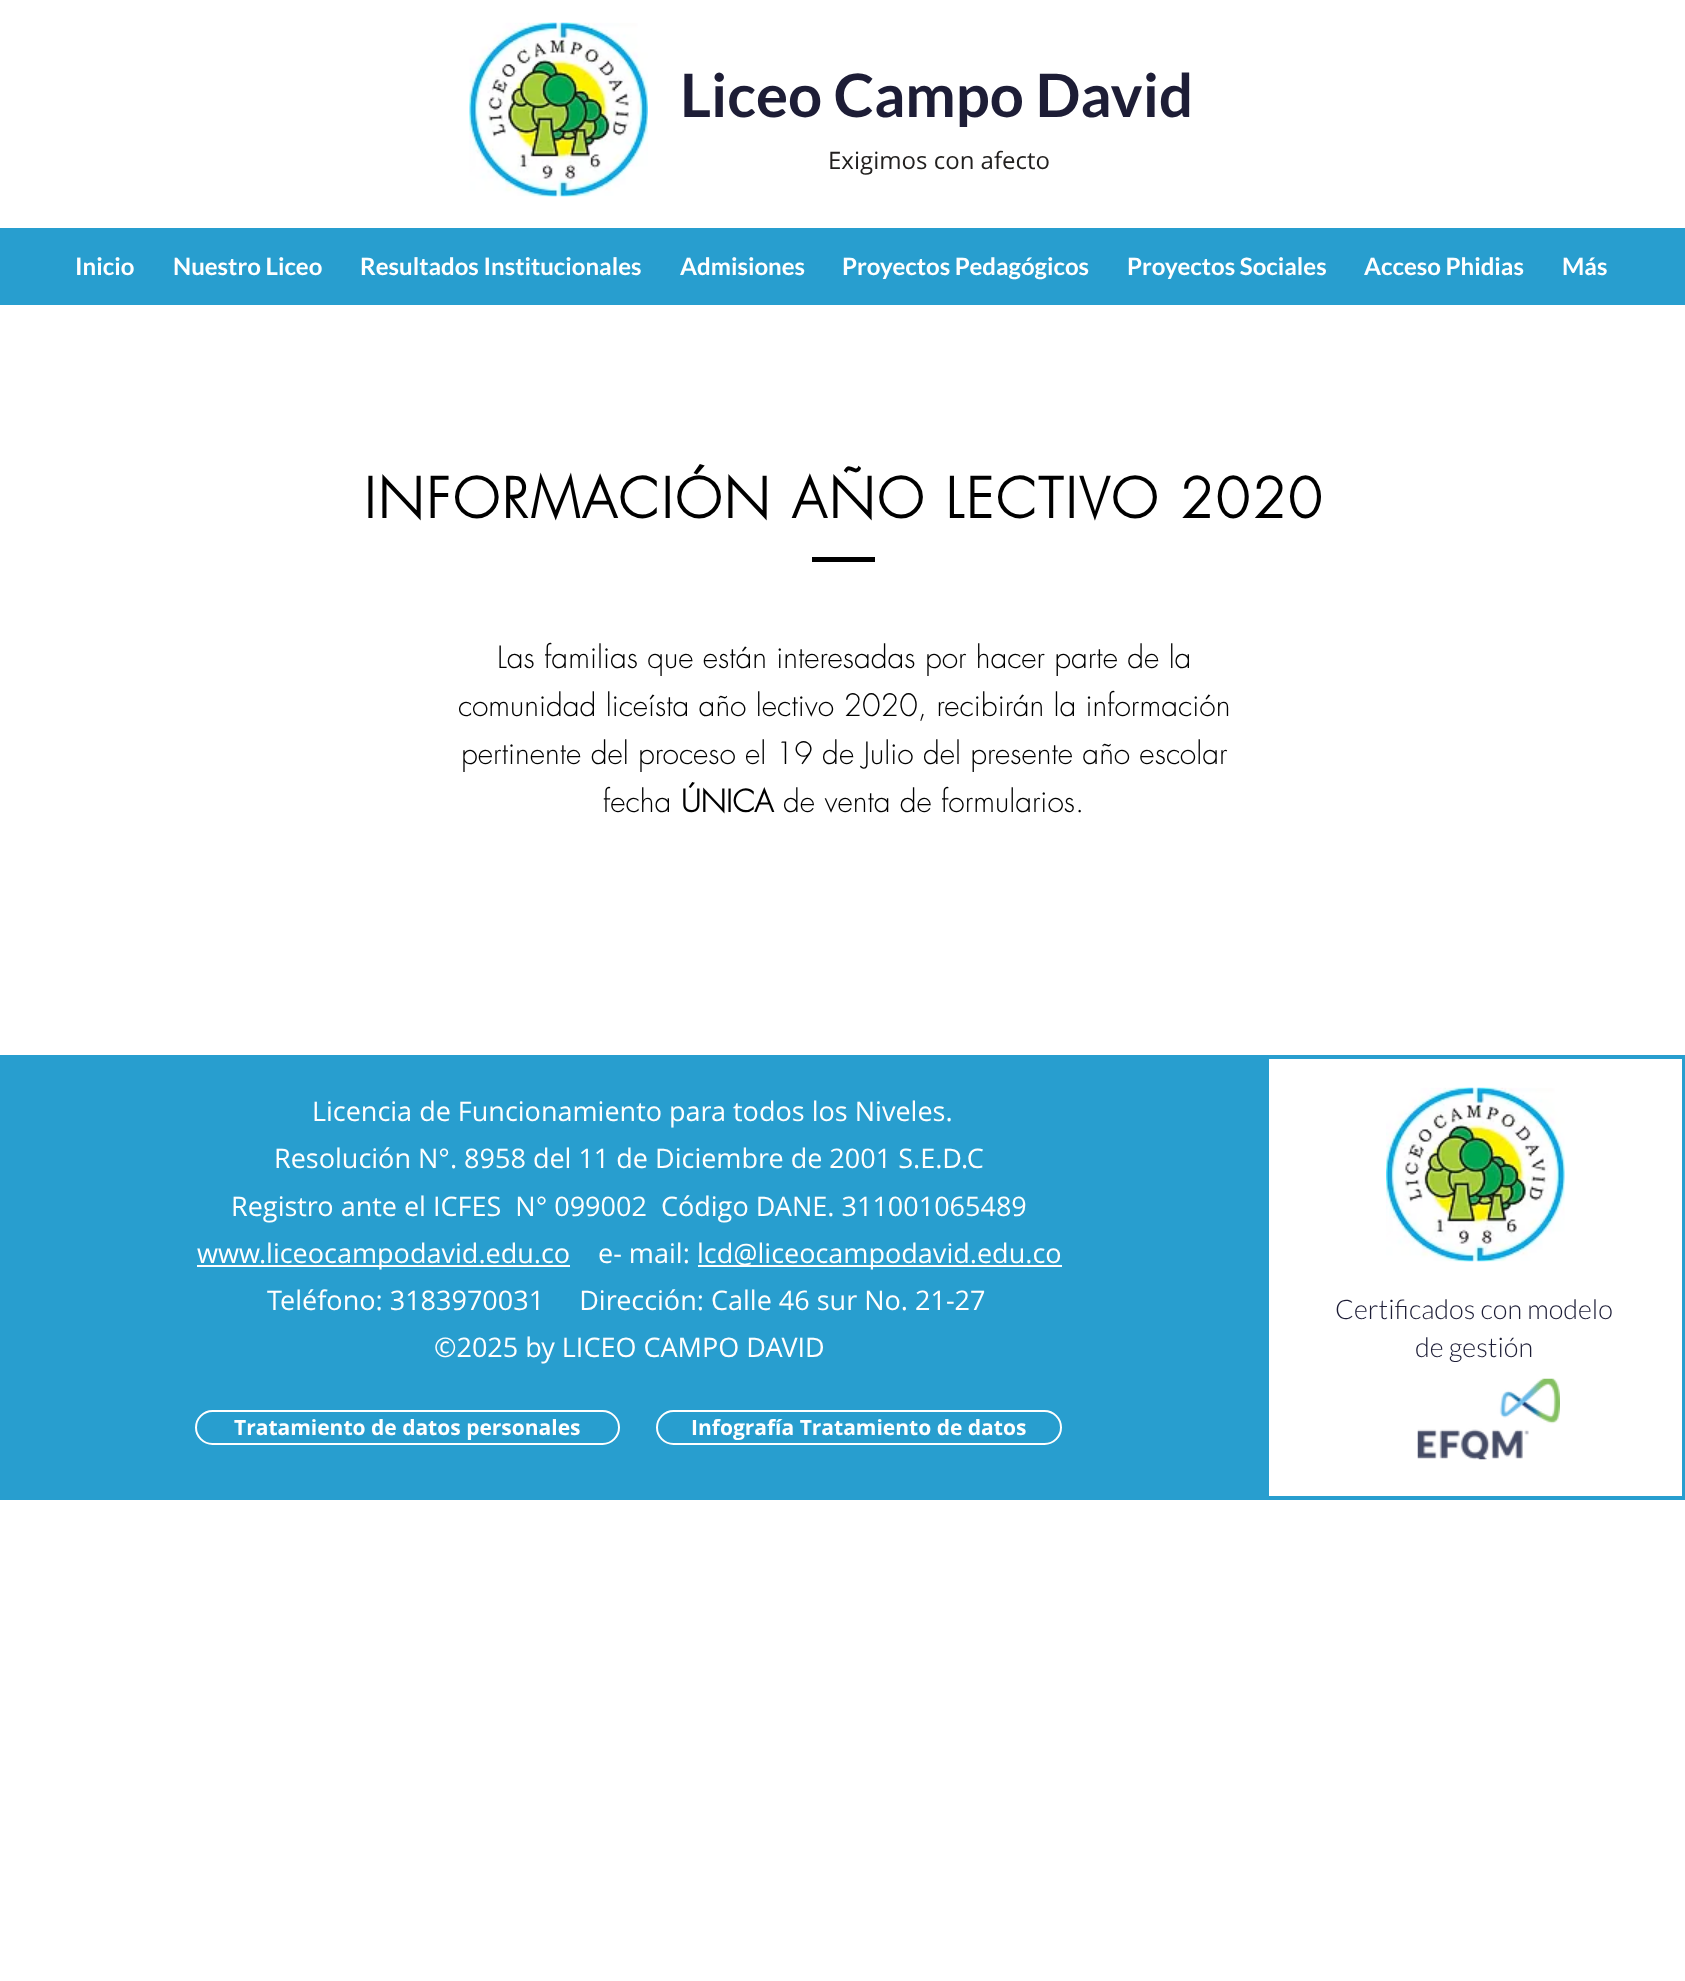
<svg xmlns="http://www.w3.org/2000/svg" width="1685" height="1981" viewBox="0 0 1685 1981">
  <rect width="100%" height="100%" fill="#ffffff"/>
  <image x="469" y="22" width="179" height="175" href="img1.png"/>
  <text x="680" y="117" font-family="Lato" font-size="60" font-weight="bold" fill="#1d1d36">Liceo Campo David</text>
  <text x="828" y="169" font-family="Open Sans" font-size="24" fill="#22201f">Exigimos con afecto</text>
  <rect x="0" y="228" width="1685" height="77" fill="#289ecf"/>
  <text x="75" y="275" font-family="Lato" font-size="24" font-weight="bold" fill="#ffffff">Inicio</text>
  <text x="173" y="275" font-family="Lato" font-size="24" font-weight="bold" fill="#ffffff">Nuestro Liceo</text>
  <text x="360" y="275" font-family="Lato" font-size="24" font-weight="bold" fill="#ffffff">Resultados Institucionales</text>
  <text x="680" y="275" font-family="Lato" font-size="24" font-weight="bold" fill="#ffffff">Admisiones</text>
  <text x="842" y="275" font-family="Lato" font-size="24" font-weight="bold" fill="#ffffff">Proyectos Pedagógicos</text>
  <text x="1127" y="275" font-family="Lato" font-size="24" font-weight="bold" fill="#ffffff">Proyectos Sociales</text>
  <text x="1364" y="275" font-family="Lato" font-size="24" font-weight="bold" fill="#ffffff">Acceso Phidias</text>
  <text x="1562" y="275" font-family="Lato" font-size="24" font-weight="bold" fill="#ffffff">Más</text>
  <text x="364" y="518" font-family="futura" font-size="54" font-weight="bold" letter-spacing="2.7" fill="#000000">INFORMACIÓN AÑO LECTIVO 2020</text>
  <rect x="812" y="557" width="63" height="5" fill="#000000"/>
  <text x="497" y="668" font-family="futura" font-size="30" font-weight="300" fill="#000000">Las familias que están interesadas por hacer parte de la</text>
  <text x="458" y="716" font-family="futura" font-size="30" font-weight="300" fill="#000000">comunidad liceísta año lectivo 2020, recibirán la información</text>
  <text x="461" y="764" font-family="futura" font-size="30" font-weight="300" fill="#000000">pertinente del proceso el 19 de Julio del presente año escolar</text>
  <text x="603" y="812" font-family="futura" font-size="30" font-weight="300" fill="#000000">fecha</text>
  <text x="681" y="812" font-family="futura" font-size="30" font-weight="bold" fill="#000000">ÚNICA</text>
  <text x="783" y="812" font-family="futura" font-size="30" font-weight="300" fill="#000000">de venta de formularios.</text>
  <rect x="0" y="1055" width="1265" height="445" fill="#289ecf"/>
  <text x="312" y="1121" font-family="Open Sans" font-size="27" fill="#ffffff">Licencia de Funcionamiento para todos los Niveles.</text>
  <text x="274" y="1168" font-family="Open Sans" font-size="27" fill="#ffffff">Resolución N°. 8958 del 11 de Diciembre de 2001 S.E.D.C</text>
  <text x="231" y="1216" font-family="Open Sans" font-size="27" fill="#ffffff" xml:space="preserve">Registro ante el ICFES  N° 099002  Código DANE. 311001065489</text>
  <rect x="197" y="1265" width="373" height="2" fill="#ffffff"/>
  <text x="197" y="1263" font-family="Open Sans" font-size="27" fill="#ffffff">www.liceocampodavid.edu.co</text>
  <text x="598" y="1263" font-family="Open Sans" font-size="27" fill="#ffffff">e- mail:</text>
  <rect x="698" y="1265" width="364" height="2" fill="#ffffff"/>
  <text x="697" y="1263" font-family="Open Sans" font-size="27" fill="#ffffff">lcd@liceocampodavid.edu.co</text>
  <text x="267" y="1310" font-family="Open Sans" font-size="27" fill="#ffffff" xml:space="preserve">Teléfono: 3183970031     Dirección: Calle 46 sur No. 21-27</text>
  <text x="434" y="1357" font-family="Open Sans" font-size="27" fill="#ffffff">©2025 by LICEO CAMPO DAVID</text>
  <rect x="196" y="1411" width="423" height="33" rx="16.5" fill="none" stroke="#ffffff" stroke-width="2"/>
  <text x="234" y="1435" font-family="Open Sans" font-size="21" font-weight="bold" fill="#ffffff">Tratamiento de datos personales</text>
  <rect x="657" y="1411" width="404" height="33" rx="16.5" fill="none" stroke="#ffffff" stroke-width="2"/>
  <text x="691" y="1435" font-family="Open Sans" font-size="21" font-weight="bold" fill="#ffffff">Infografía Tratamiento de datos</text>
  <rect x="1267.5" y="1057.5" width="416" height="440" fill="none" stroke="#289ecf" stroke-width="5"/>
  <rect x="1269" y="1059" width="413" height="437" fill="#ffffff"/>
  <image x="1386" y="1087" width="179" height="175" href="img2.png"/>
  <text x="1335" y="1319" font-family="Lato" font-size="27" font-weight="300" fill="#1d1d36">Certificados con modelo</text>
  <text x="1415" y="1357" font-family="Lato" font-size="27" font-weight="300" fill="#1d1d36">de gestión</text>
  <image x="1417" y="1378" width="143" height="82" href="img3.png"/>
</svg>
